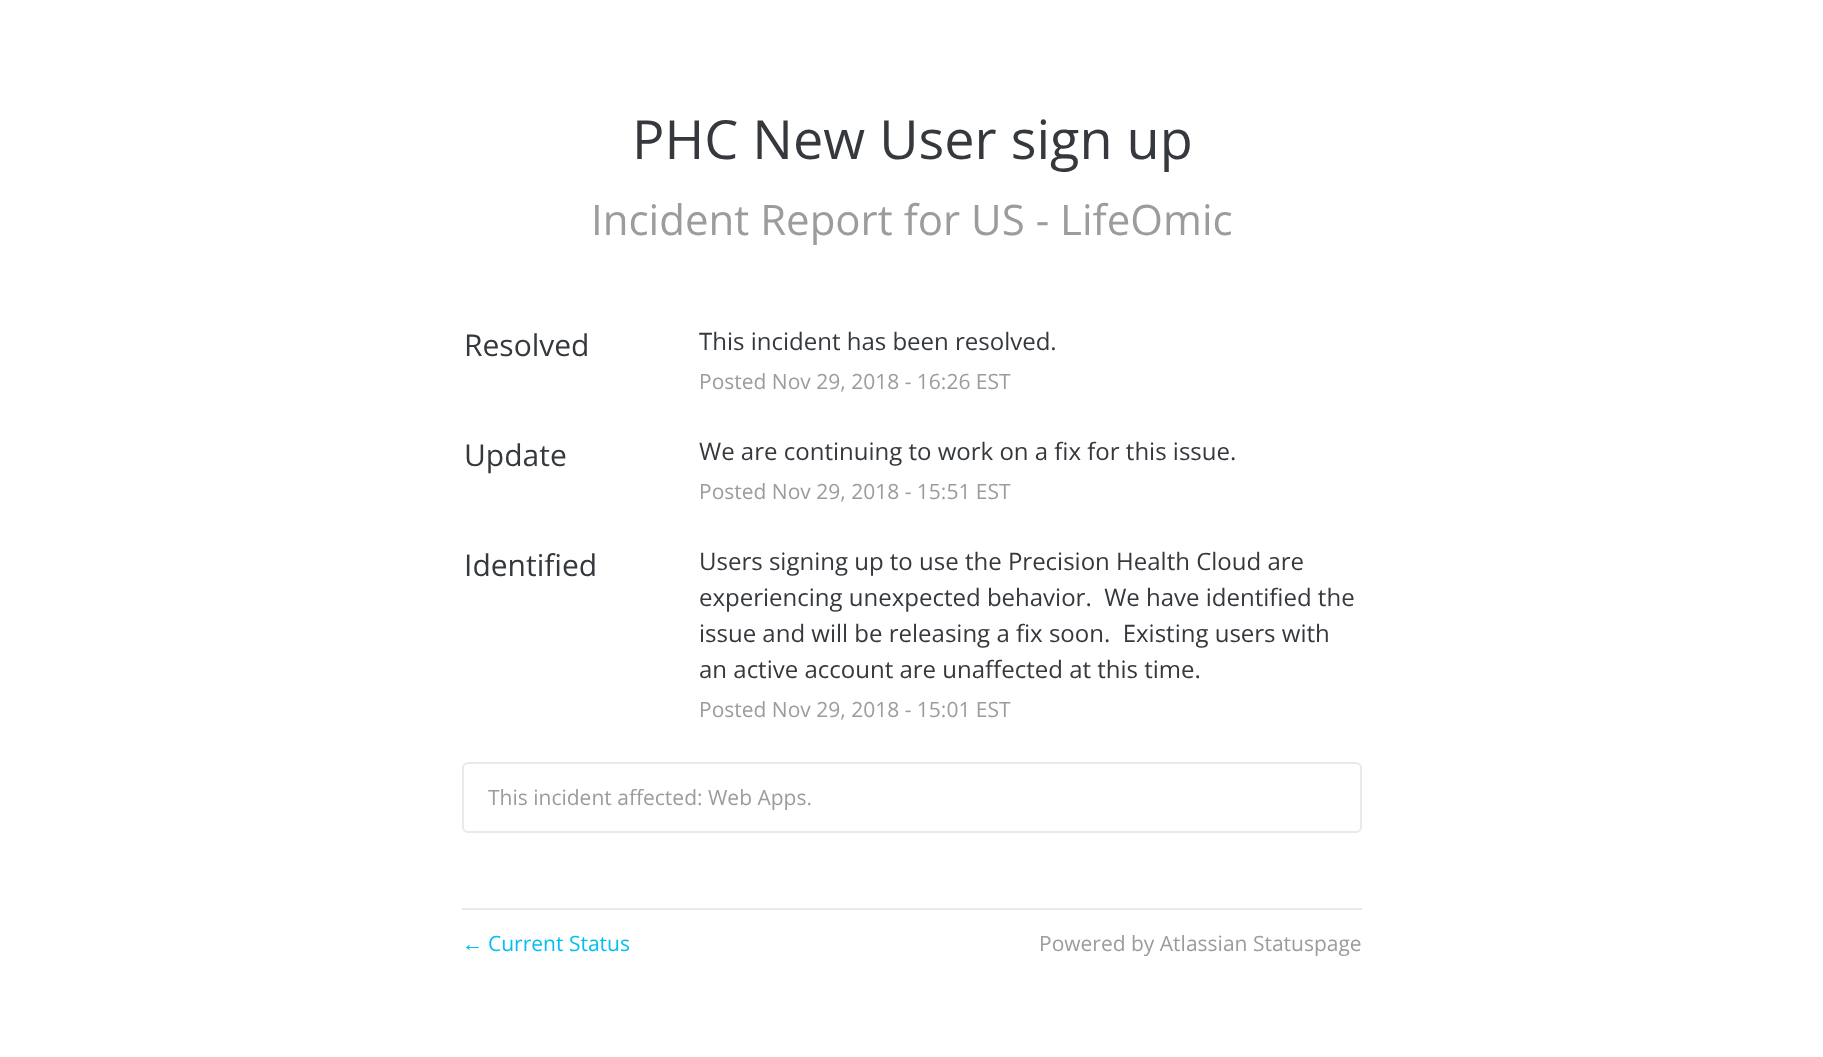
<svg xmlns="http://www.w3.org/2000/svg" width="1823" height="1057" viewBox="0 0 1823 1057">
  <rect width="100%" height="100%" fill="#ffffff"/>
  <text x="632" y="159" font-family="Open Sans" font-size="54" fill="#35393d">PHC New User sign up</text>
  <text x="591" y="235" font-family="Open Sans" font-size="42" fill="#9c9c9c">Incident Report for US - LifeOmic</text>
  <text x="464" y="356" font-family="Open Sans" font-size="30" fill="#35393d">Resolved</text>
  <text x="699" y="350" font-family="Open Sans" font-size="24" fill="#35393d">This incident has been resolved.</text>
  <text x="699" y="389" font-family="Open Sans" font-size="21" fill="#9c9c9c">Posted Nov 29, 2018 - 16:26 EST</text>
  <text x="464" y="466" font-family="Open Sans" font-size="30" fill="#35393d">Update</text>
  <text x="699" y="460" font-family="Open Sans" font-size="24" fill="#35393d">We are continuing to work on a fix for this issue.</text>
  <text x="699" y="499" font-family="Open Sans" font-size="21" fill="#9c9c9c">Posted Nov 29, 2018 - 15:51 EST</text>
  <text x="464" y="576" font-family="Open Sans" font-size="30" fill="#35393d">Identified</text>
  <text x="699" y="570" font-family="Open Sans" font-size="24" fill="#35393d">Users signing up to use the Precision Health Cloud are</text>
  <text x="699" y="606" font-family="Open Sans" font-size="24" fill="#35393d" xml:space="preserve">experiencing unexpected behavior.  We have identified the</text>
  <text x="699" y="642" font-family="Open Sans" font-size="24" fill="#35393d" xml:space="preserve">issue and will be releasing a fix soon.  Existing users with</text>
  <text x="699" y="678" font-family="Open Sans" font-size="24" fill="#35393d">an active account are unaffected at this time.</text>
  <text x="699" y="717" font-family="Open Sans" font-size="21" fill="#9c9c9c">Posted Nov 29, 2018 - 15:01 EST</text>
  <rect x="463" y="763" width="898" height="69" rx="5" fill="none" stroke="#e9e9e9" stroke-width="2"/>
  <text x="488" y="805" font-family="Open Sans" font-size="21" fill="#9c9c9c">This incident affected: Web Apps.</text>
  <rect x="462" y="908" width="900" height="2" fill="#e9e9e9"/>
  <text x="462" y="951" font-family="Liberation Sans" font-size="21" fill="#02bff1">←</text>
  <text x="488" y="951" font-family="Open Sans" font-size="21" fill="#02bff1">Current Status</text>
  <text x="1039" y="951" font-family="Open Sans" font-size="21" fill="#9c9c9c">Powered by Atlassian Statuspage</text>
</svg>
